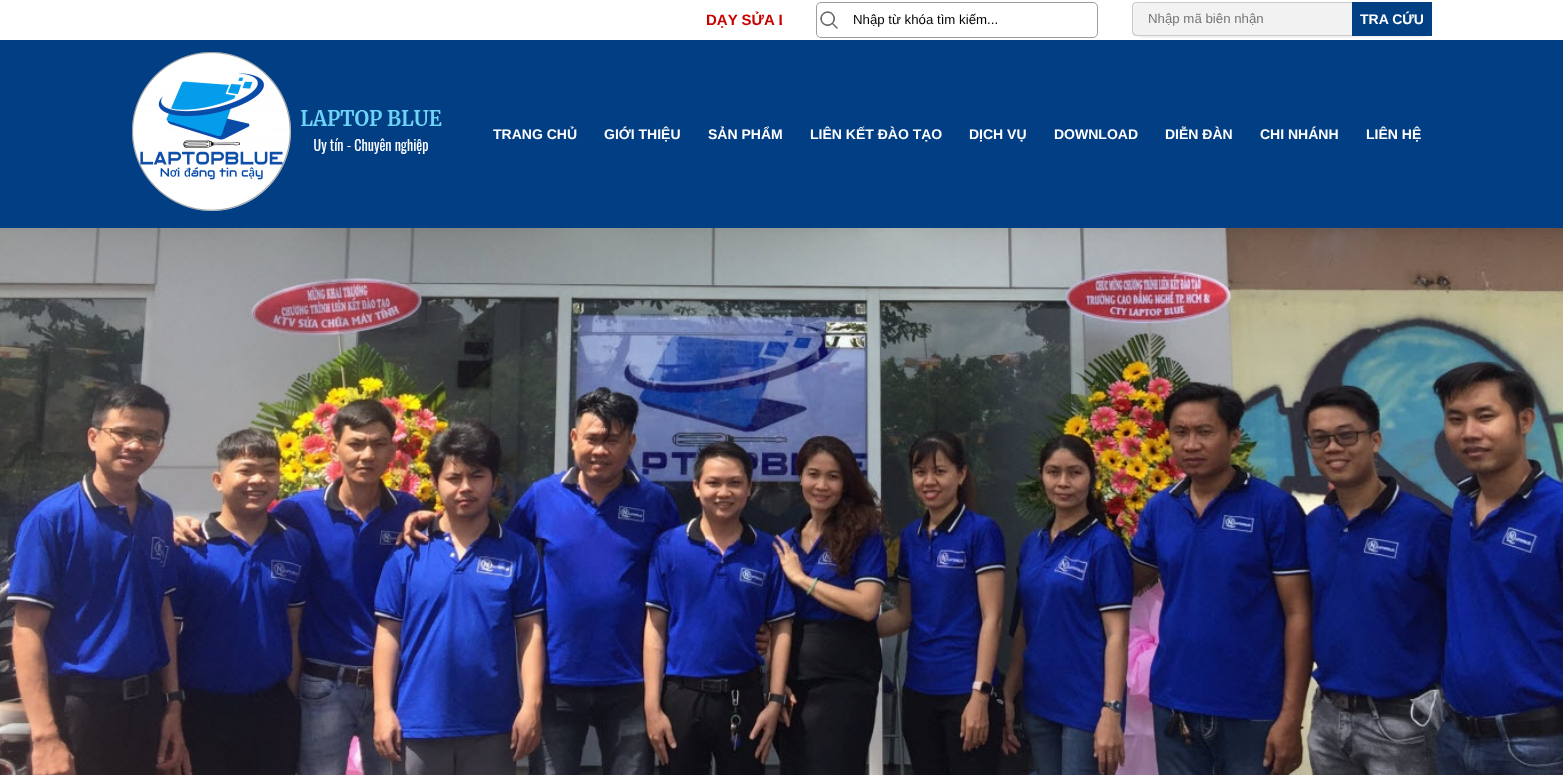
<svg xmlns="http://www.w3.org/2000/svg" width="1563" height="775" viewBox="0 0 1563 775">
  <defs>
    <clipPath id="clip1"><rect x="132" y="0" width="650" height="40"/></clipPath>
  </defs>
  <rect width="100%" height="100%" fill="#ffffff"/>
  <g clip-path="url(#clip1)">
    <text x="706" y="25" font-family="Liberation Sans" font-size="15" font-weight="bold" fill="#c70000">DẠY SỬA L</text>
  </g>
  <rect x="816.5" y="2.5" width="281" height="35" rx="4.5" fill="none" stroke="#9e9e9e"/>
  <image x="820" y="11" width="18" height="18" href="img1.png"/>
  <text x="853" y="24" font-family="Liberation Sans" font-size="13.25" fill="#000000">Nhập từ khóa tìm kiếm...</text>
  <rect x="1132" y="2" width="300" height="36" rx="10" fill="#f2f2f2"/>
  <path d="M1137 2H1352V36H1137C1134 36 1132 34 1132 31V7C1132 4 1134 2 1137 2ZM1137 3H1352V35H1137C1135 35 1133 33 1133 31V7C1133 5 1135 3 1137 3Z" fill="#cacaca" fill-rule="evenodd"/>
  <text x="1148" y="23" font-family="Liberation Sans" font-size="13.25" fill="#757575">Nhập mã biên nhận</text>
  <rect x="1352" y="2" width="80" height="34" fill="#014183"/>
  <text x="1360" y="24" font-family="Liberation Sans" font-size="14" font-weight="bold" fill="#ffffff">TRA CỨU</text>
  <rect x="0" y="40" width="1563" height="188" fill="#013e83"/>
  <image x="132" y="52" width="159" height="159" href="img2.png"/>
  <image x="301" y="110" width="141" height="44" href="img3.png"/>
  <text x="493" y="139" font-family="Liberation Sans" font-size="14" font-weight="bold" fill="#ffffff">TRANG CHỦ</text>
  <text x="604" y="139" font-family="Liberation Sans" font-size="14" font-weight="bold" fill="#ffffff">GIỚI THIỆU</text>
  <text x="708" y="139" font-family="Liberation Sans" font-size="14" font-weight="bold" fill="#ffffff">SẢN PHẨM</text>
  <text x="810" y="139" font-family="Liberation Sans" font-size="14" font-weight="bold" fill="#ffffff">LIÊN KẾT ĐÀO TẠO</text>
  <text x="969" y="139" font-family="Liberation Sans" font-size="14" font-weight="bold" fill="#ffffff">DỊCH VỤ</text>
  <text x="1054" y="139" font-family="Liberation Sans" font-size="14" font-weight="bold" fill="#ffffff">DOWNLOAD</text>
  <text x="1165" y="139" font-family="Liberation Sans" font-size="14" font-weight="bold" fill="#ffffff">DIỄN ĐÀN</text>
  <text x="1260" y="139" font-family="Liberation Sans" font-size="14" font-weight="bold" fill="#ffffff">CHI NHÁNH</text>
  <text x="1366" y="139" font-family="Liberation Sans" font-size="14" font-weight="bold" fill="#ffffff">LIÊN HỆ</text>
  <image x="0" y="228" width="1563" height="547" href="img4.png"/>
</svg>
